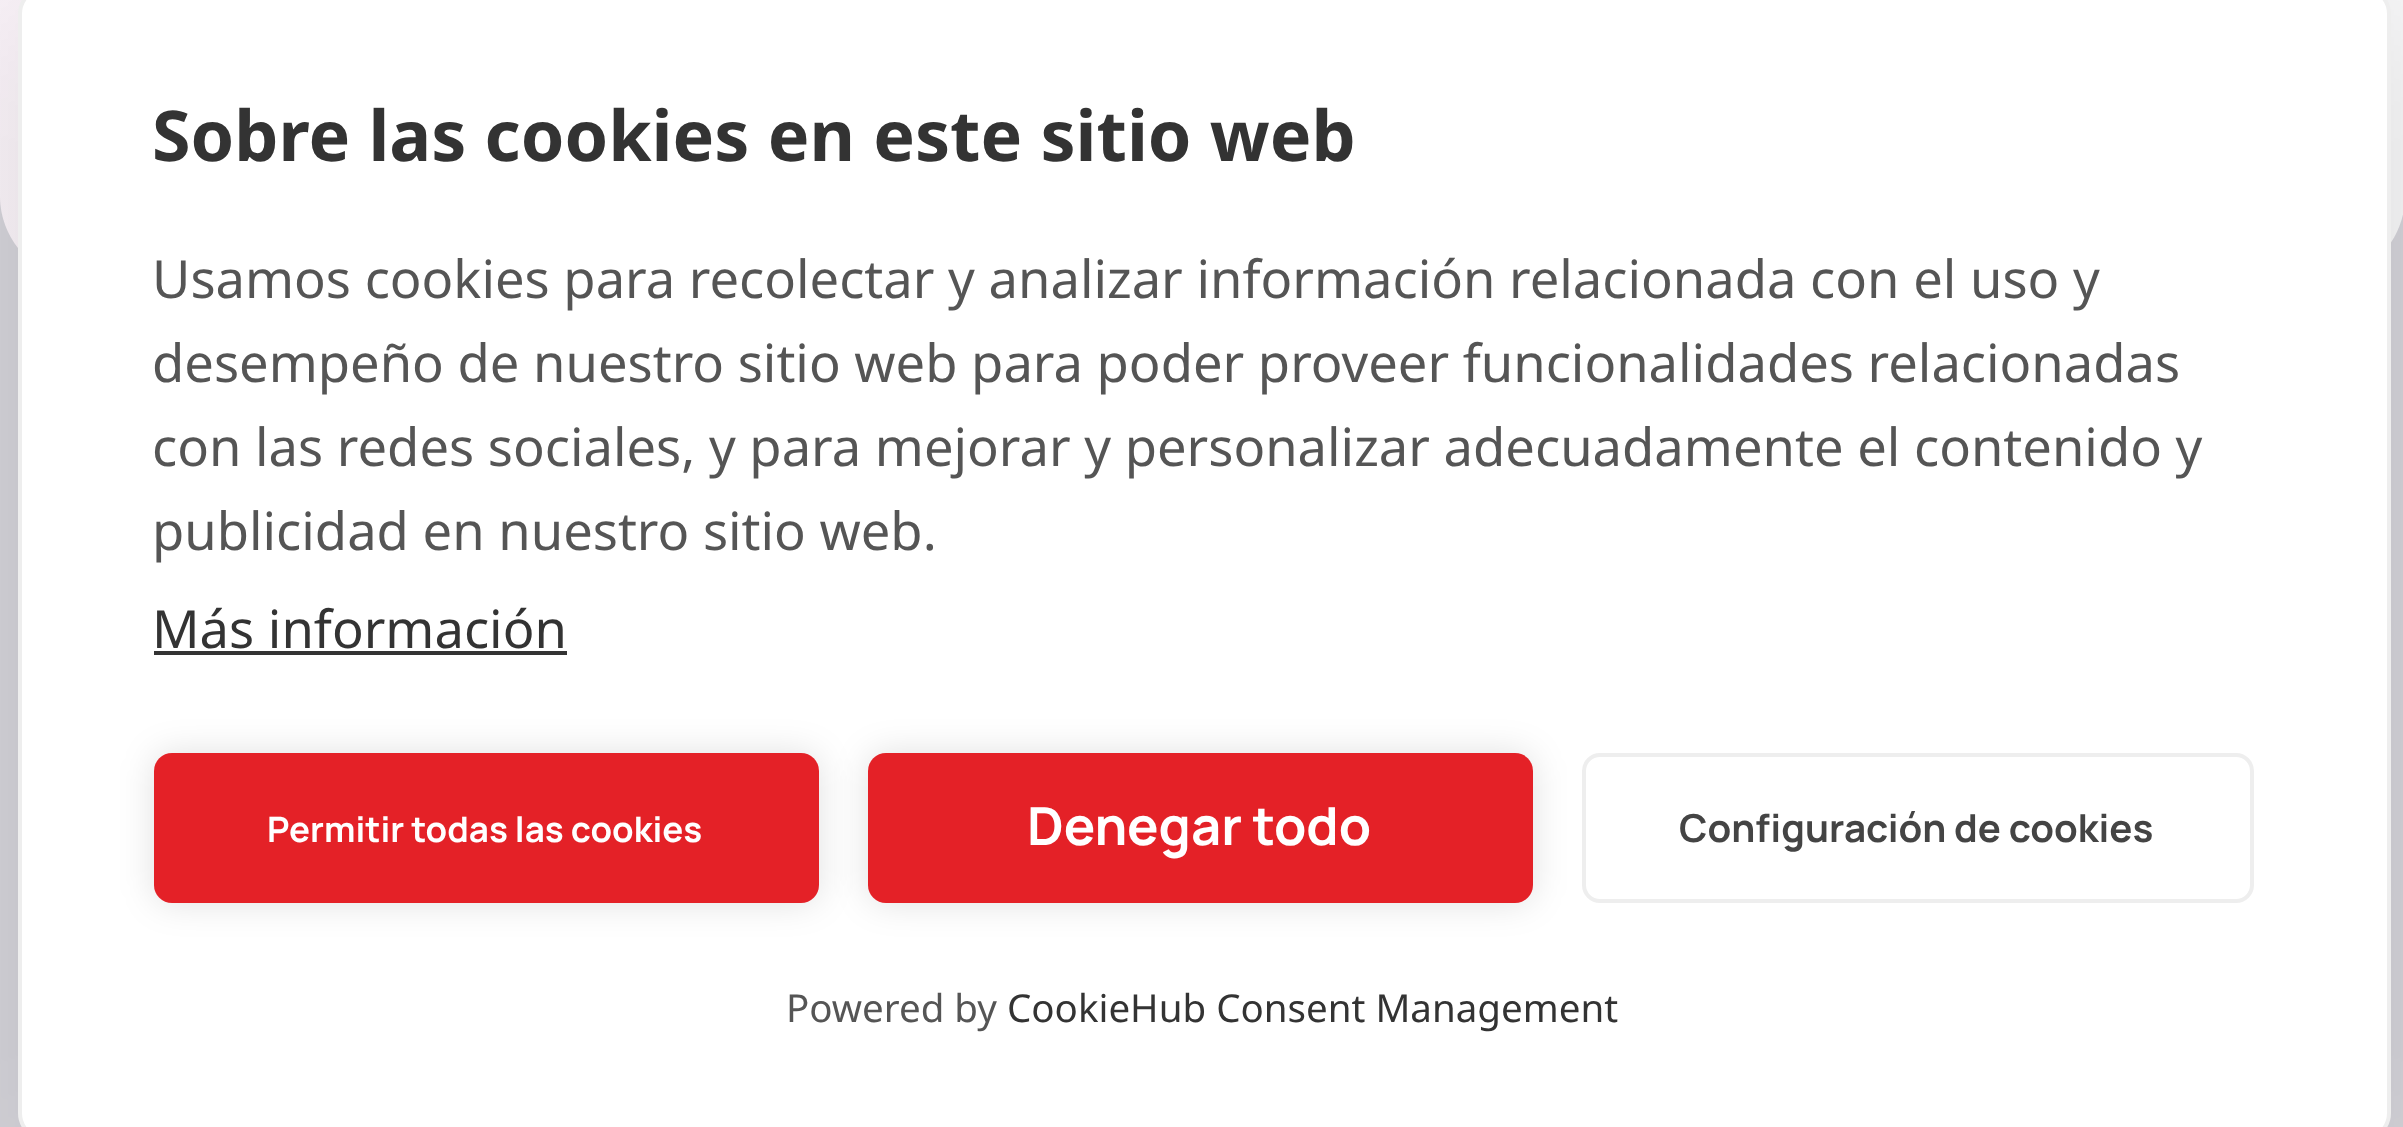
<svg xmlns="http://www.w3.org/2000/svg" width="2403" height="1127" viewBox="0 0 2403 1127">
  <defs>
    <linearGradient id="g1" gradientUnits="userSpaceOnUse" x1="-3" y1="245" x2="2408" y2="35"><stop offset="0.26" stop-color="#fdf5fb" stop-opacity="0.9"/><stop offset="0.69" stop-color="#ffffff" stop-opacity="0.8"/></linearGradient>
    <filter id="blur1" x="-50%" y="-200%" width="200%" height="500%"><feGaussianBlur stdDeviation="70"/></filter>
    <filter id="blur2" x="-50%" y="-200%" width="200%" height="500%"><feGaussianBlur stdDeviation="17.5"/></filter>
  </defs>
  <rect width="100%" height="100%" fill="#d3d2d8"/>
  <path d="M0 0H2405V196C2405 242.5 2367.5 280 2321 280H84C37.5 280 0 242.5 0 196Z" fill="url(#g1)"/>
  <rect x="18" y="21" width="2373" height="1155" rx="28" fill="#000000" fill-opacity="0.1" filter="url(#blur1)"/>
  <rect x="20" y="-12" width="2369" height="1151" rx="26" fill="#ffffff" stroke="#eeeeee" stroke-width="4"/>
  <text x="152" y="161" font-family="Noto Sans" font-size="70" font-weight="bold" fill="#333333">Sobre las cookies en este sitio web</text>
  <text x="152" y="298" font-family="Noto Sans" font-size="52.5" fill="#555555">Usamos cookies para recolectar y analizar información relacionada con el uso y</text>
  <text x="152" y="382" font-family="Noto Sans" font-size="52.5" fill="#555555">desempeño de nuestro sitio web para poder proveer funcionalidades relacionadas</text>
  <text x="152" y="466" font-family="Noto Sans" font-size="52.5" fill="#555555">con las redes sociales, y para mejorar y personalizar adecuadamente el contenido y</text>
  <text x="152" y="550" font-family="Noto Sans" font-size="52.5" fill="#555555">publicidad en nuestro sitio web.</text>
  <text x="152" y="648" font-family="Noto Sans" font-size="52.5" fill="#333333">Más información</text>
  <rect x="154" y="651" width="413" height="4" fill="#333333"/>
  <rect x="154" y="753" width="665" height="150" rx="18" fill="#000000" fill-opacity="0.12" filter="url(#blur2)"/>
  <rect x="154" y="753" width="665" height="150" rx="18" fill="#e42127"/>
  <text x="267" y="842" font-family="Manrope" font-size="35" font-weight="bold" fill="#ffffff">Permitir todas las cookies</text>
  <rect x="868" y="753" width="665" height="150" rx="18" fill="#000000" fill-opacity="0.12" filter="url(#blur2)"/>
  <rect x="868" y="753" width="665" height="150" rx="18" fill="#e42127"/>
  <text x="1027" y="845" font-family="Manrope" font-size="52.5" font-weight="bold" fill="#ffffff">Denegar todo</text>
  <rect x="1584" y="755" width="668" height="146" rx="16" fill="none" stroke="#eeeeee" stroke-width="4"/>
  <text x="1679" y="842" font-family="Manrope" font-size="38.5" font-weight="bold" fill="#444444">Configuración de cookies</text>
  <text x="786" y="1022" font-family="Noto Sans" font-size="38.5" fill="#555555">Powered by</text>
  <text x="1007" y="1022" font-family="Noto Sans" font-size="38.5" fill="#333333">CookieHub Consent Management</text>
</svg>
